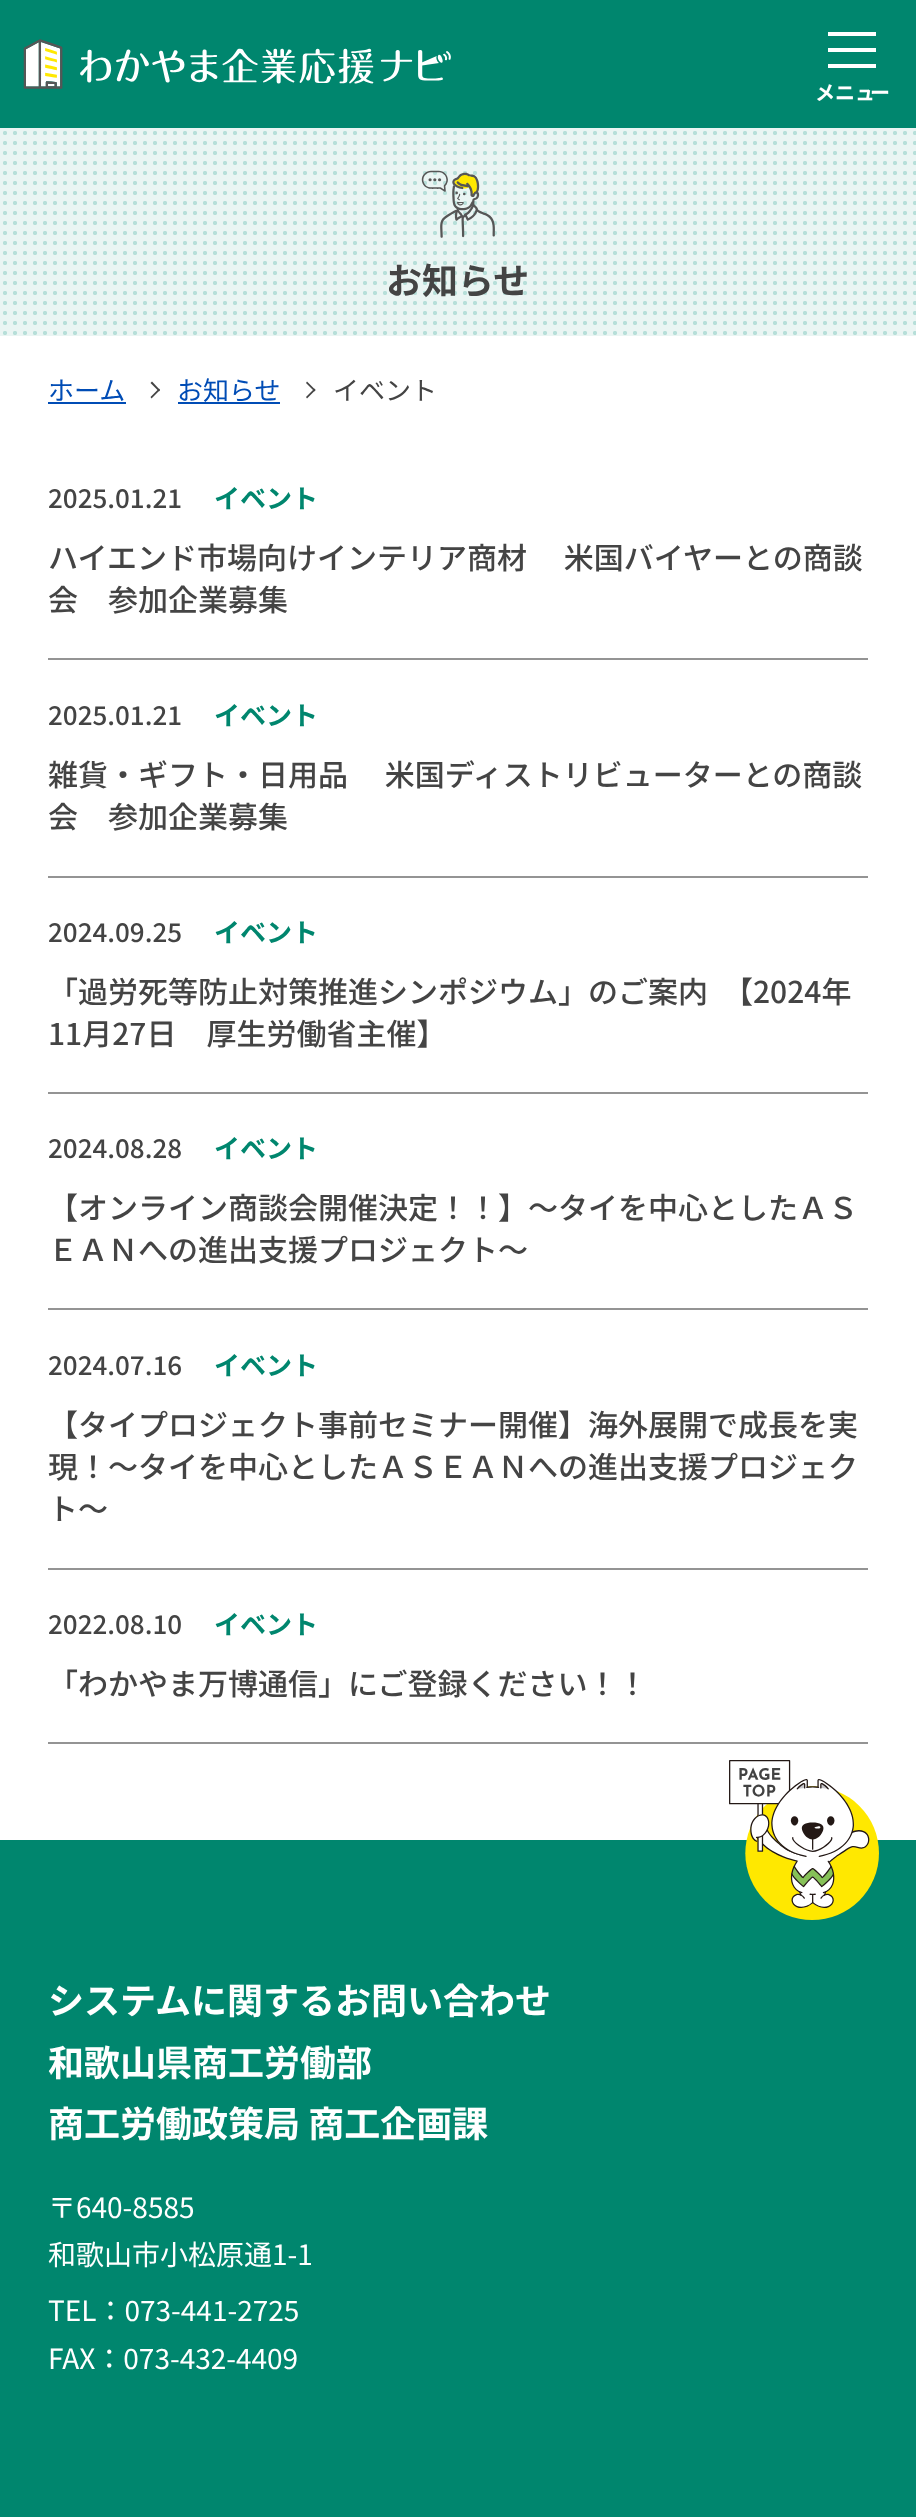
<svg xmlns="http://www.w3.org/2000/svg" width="916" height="2517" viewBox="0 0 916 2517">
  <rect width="100%" height="100%" fill="#ffffff"/>
  <rect x="0" y="0" width="916" height="128" fill="#00866e"/>
  <image x="23" y="39" width="428" height="50" href="img1.png"/>
  <rect x="828" y="32" width="48" height="4" fill="#ffffff"/>
  <rect x="828" y="48" width="48" height="4" fill="#ffffff"/>
  <rect x="828" y="64" width="48" height="4" fill="#ffffff"/>
  <text x="815" y="100" font-family="Noto Sans JP" font-size="20" font-weight="bold" fill="#ffffff">メニュ</text>
  <text x="870" y="100" font-family="Noto Sans JP" font-size="20" font-weight="bold" fill="#ffffff">ー</text>
  <rect x="0" y="128" width="916" height="208" fill="#e5f3f0"/>
  <image x="0" y="128" width="916" height="208" href="img2.png"/>
  <image x="421" y="170" width="74" height="68" href="img3.png"/>
  <text x="386" y="294" font-family="Noto Sans JP" font-size="36" font-weight="bold" fill="#444444">お知らせ</text>
  <text x="48" y="400" font-family="Noto Sans JP" font-size="26" fill="#004cb5">ホーム</text>
  <rect x="48" y="402" width="78" height="2" fill="#004cb5"/>
  <path d="M152 381.5L160 390L159 391.5L150.5 383Z" fill="#444444"/>
  <path d="M159 388.5L160 390L151.5 398.5L150.5 397Z" fill="#444444"/>
  <text x="177" y="400" font-family="Noto Sans JP" font-size="26" fill="#004cb5">お知らせ</text>
  <rect x="178" y="402" width="102" height="2" fill="#004cb5"/>
  <path d="M307 381.5L315.5 390L314.5 391.5L306 383Z" fill="#444444"/>
  <path d="M314.5 388.5L315.5 390L307 398.5L306 397Z" fill="#444444"/>
  <text x="333" y="400" font-family="Noto Sans JP" font-size="26" fill="#444444">イベント</text>
  <rect x="48" y="658" width="820" height="2" fill="#949494"/>
  <text x="48" y="508" font-family="Noto Sans JP" font-size="26" font-weight="500" fill="#444444">2025.01.21</text>
  <text x="214" y="508" font-family="Noto Sans JP" font-size="26" font-weight="bold" fill="#00866e">イベント</text>
  <text x="48" y="569" font-family="Noto Sans JP" font-size="30" font-weight="500" fill="#444444">ハイエンド市場向けインテリア商材　 米国バイヤーとの商談</text>
  <text x="48" y="611" font-family="Noto Sans JP" font-size="30" font-weight="500" fill="#444444">会　参加企業募集</text>
  <rect x="48" y="876" width="820" height="2" fill="#949494"/>
  <text x="48" y="725" font-family="Noto Sans JP" font-size="26" font-weight="500" fill="#444444">2025.01.21</text>
  <text x="214" y="725" font-family="Noto Sans JP" font-size="26" font-weight="bold" fill="#00866e">イベント</text>
  <text x="48" y="786" font-family="Noto Sans JP" font-size="30" font-weight="500" fill="#444444">雑貨・ギフト・日用品　 米国ディストリビューターとの商談</text>
  <text x="48" y="828" font-family="Noto Sans JP" font-size="30" font-weight="500" fill="#444444">会　参加企業募集</text>
  <rect x="48" y="1092" width="820" height="2" fill="#949494"/>
  <text x="48" y="942" font-family="Noto Sans JP" font-size="26" font-weight="500" fill="#444444">2024.09.25</text>
  <text x="214" y="942" font-family="Noto Sans JP" font-size="26" font-weight="bold" fill="#00866e">イベント</text>
  <text x="48" y="1003" font-family="Noto Sans JP" font-size="30" font-weight="500" fill="#444444">「過労死等防止対策推進シンポジウム」のご案内　【2024年</text>
  <text x="48" y="1045" font-family="Noto Sans JP" font-size="30" font-weight="500" fill="#444444">11月27日　厚生労働省主催】</text>
  <rect x="48" y="1308" width="820" height="2" fill="#949494"/>
  <text x="48" y="1158" font-family="Noto Sans JP" font-size="26" font-weight="500" fill="#444444">2024.08.28</text>
  <text x="214" y="1158" font-family="Noto Sans JP" font-size="26" font-weight="bold" fill="#00866e">イベント</text>
  <text x="48" y="1219" font-family="Noto Sans JP" font-size="30" font-weight="500" fill="#444444">【オンライン商談会開催決定！！】～タイを中心としたＡＳ</text>
  <text x="48" y="1261" font-family="Noto Sans JP" font-size="30" font-weight="500" fill="#444444">ＥＡＮへの進出支援プロジェクト～</text>
  <rect x="48" y="1568" width="820" height="2" fill="#949494"/>
  <text x="48" y="1375" font-family="Noto Sans JP" font-size="26" font-weight="500" fill="#444444">2024.07.16</text>
  <text x="214" y="1375" font-family="Noto Sans JP" font-size="26" font-weight="bold" fill="#00866e">イベント</text>
  <text x="48" y="1436" font-family="Noto Sans JP" font-size="30" font-weight="500" fill="#444444">【タイプロジェクト事前セミナー開催】海外展開で成長を実</text>
  <text x="48" y="1478" font-family="Noto Sans JP" font-size="30" font-weight="500" fill="#444444">現！～タイを中心としたＡＳＥＡＮへの進出支援プロジェク</text>
  <text x="48" y="1520" font-family="Noto Sans JP" font-size="30" font-weight="500" fill="#444444">ト～</text>
  <rect x="48" y="1742" width="820" height="2" fill="#949494"/>
  <text x="48" y="1634" font-family="Noto Sans JP" font-size="26" font-weight="500" fill="#444444">2022.08.10</text>
  <text x="214" y="1634" font-family="Noto Sans JP" font-size="26" font-weight="bold" fill="#00866e">イベント</text>
  <text x="48" y="1695" font-family="Noto Sans JP" font-size="30" font-weight="500" fill="#444444">「わかやま万博通信」にご登録ください！！</text>
  <rect x="0" y="1840" width="916" height="677" fill="#00866e"/>
  <image x="729" y="1760" width="150" height="160" href="img4.png"/>
  <text x="48" y="2014" font-family="Noto Sans JP" font-size="36" font-weight="bold" fill="#ffffff">システムに関するお問い合わせ</text>
  <text x="48" y="2076" font-family="Noto Sans JP" font-size="36" font-weight="bold" fill="#ffffff">和歌山県商工労働部</text>
  <text x="48" y="2137" font-family="Noto Sans JP" font-size="36" font-weight="bold" fill="#ffffff">商工労働政策局 商工企画課</text>
  <text x="48" y="2218" font-family="Noto Sans JP" font-size="28" fill="#ffffff">〒640-8585</text>
  <text x="48" y="2265" font-family="Noto Sans JP" font-size="28" fill="#ffffff">和歌山市小松原通1-1</text>
  <text x="48" y="2321" font-family="Noto Sans JP" font-size="28" fill="#ffffff">TEL：073-441-2725</text>
  <text x="48" y="2369" font-family="Noto Sans JP" font-size="28" fill="#ffffff">FAX：073-432-4409</text>
</svg>
